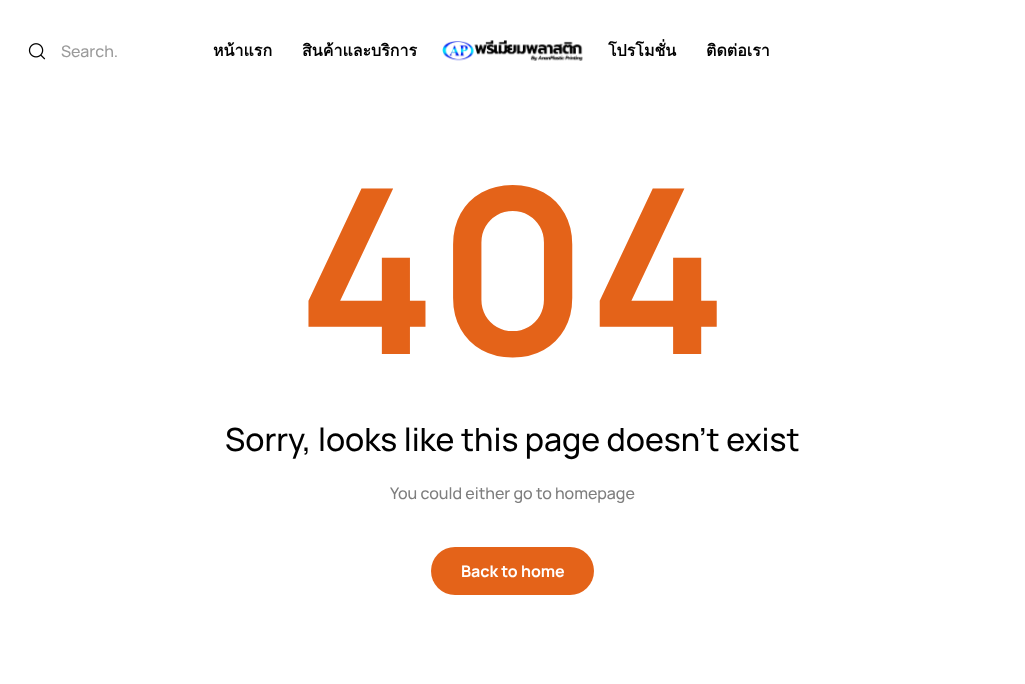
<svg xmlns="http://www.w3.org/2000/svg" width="1025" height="684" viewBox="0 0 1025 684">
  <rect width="100%" height="100%" fill="#ffffff"/>
  <image x="28" y="43" width="18" height="17" href="img1.png"/>
  <text x="61" y="57" font-family="Manrope" font-size="16" font-weight="500" fill="#9b9b9b">Search.</text>
  <text x="213" y="56" font-family="Loma" font-size="16" font-weight="bold" fill="#000000">หน้าแรก</text>
  <text x="302" y="56" font-family="Loma" font-size="16" font-weight="bold" fill="#000000">สินค้าและบริการ</text>
  <image x="442" y="40" width="141" height="21" href="img2.png"/>
  <text x="608" y="56" font-family="Loma" font-size="16" font-weight="bold" fill="#000000">โปรโมชั่น</text>
  <text x="706" y="56" font-family="Loma" font-size="16" font-weight="bold" fill="#000000">ติดต่อเรา</text>
  <text x="297" y="354" font-family="Manrope" font-size="230" font-weight="bold" fill="#e46319">404</text>
  <text x="225" y="451" font-family="Manrope" font-size="32" font-weight="500" fill="#000000">Sorry, looks like this page doesn't exist</text>
  <text x="390" y="499" font-family="Manrope" font-size="16" font-weight="500" fill="#7e7e7e">You could either go to homepage</text>
  <rect x="431" y="547" width="163" height="48" rx="24" fill="#e46319"/>
  <text x="461" y="577" font-family="Manrope" font-size="16" font-weight="bold" fill="#ffffff">Back to home</text>
</svg>
